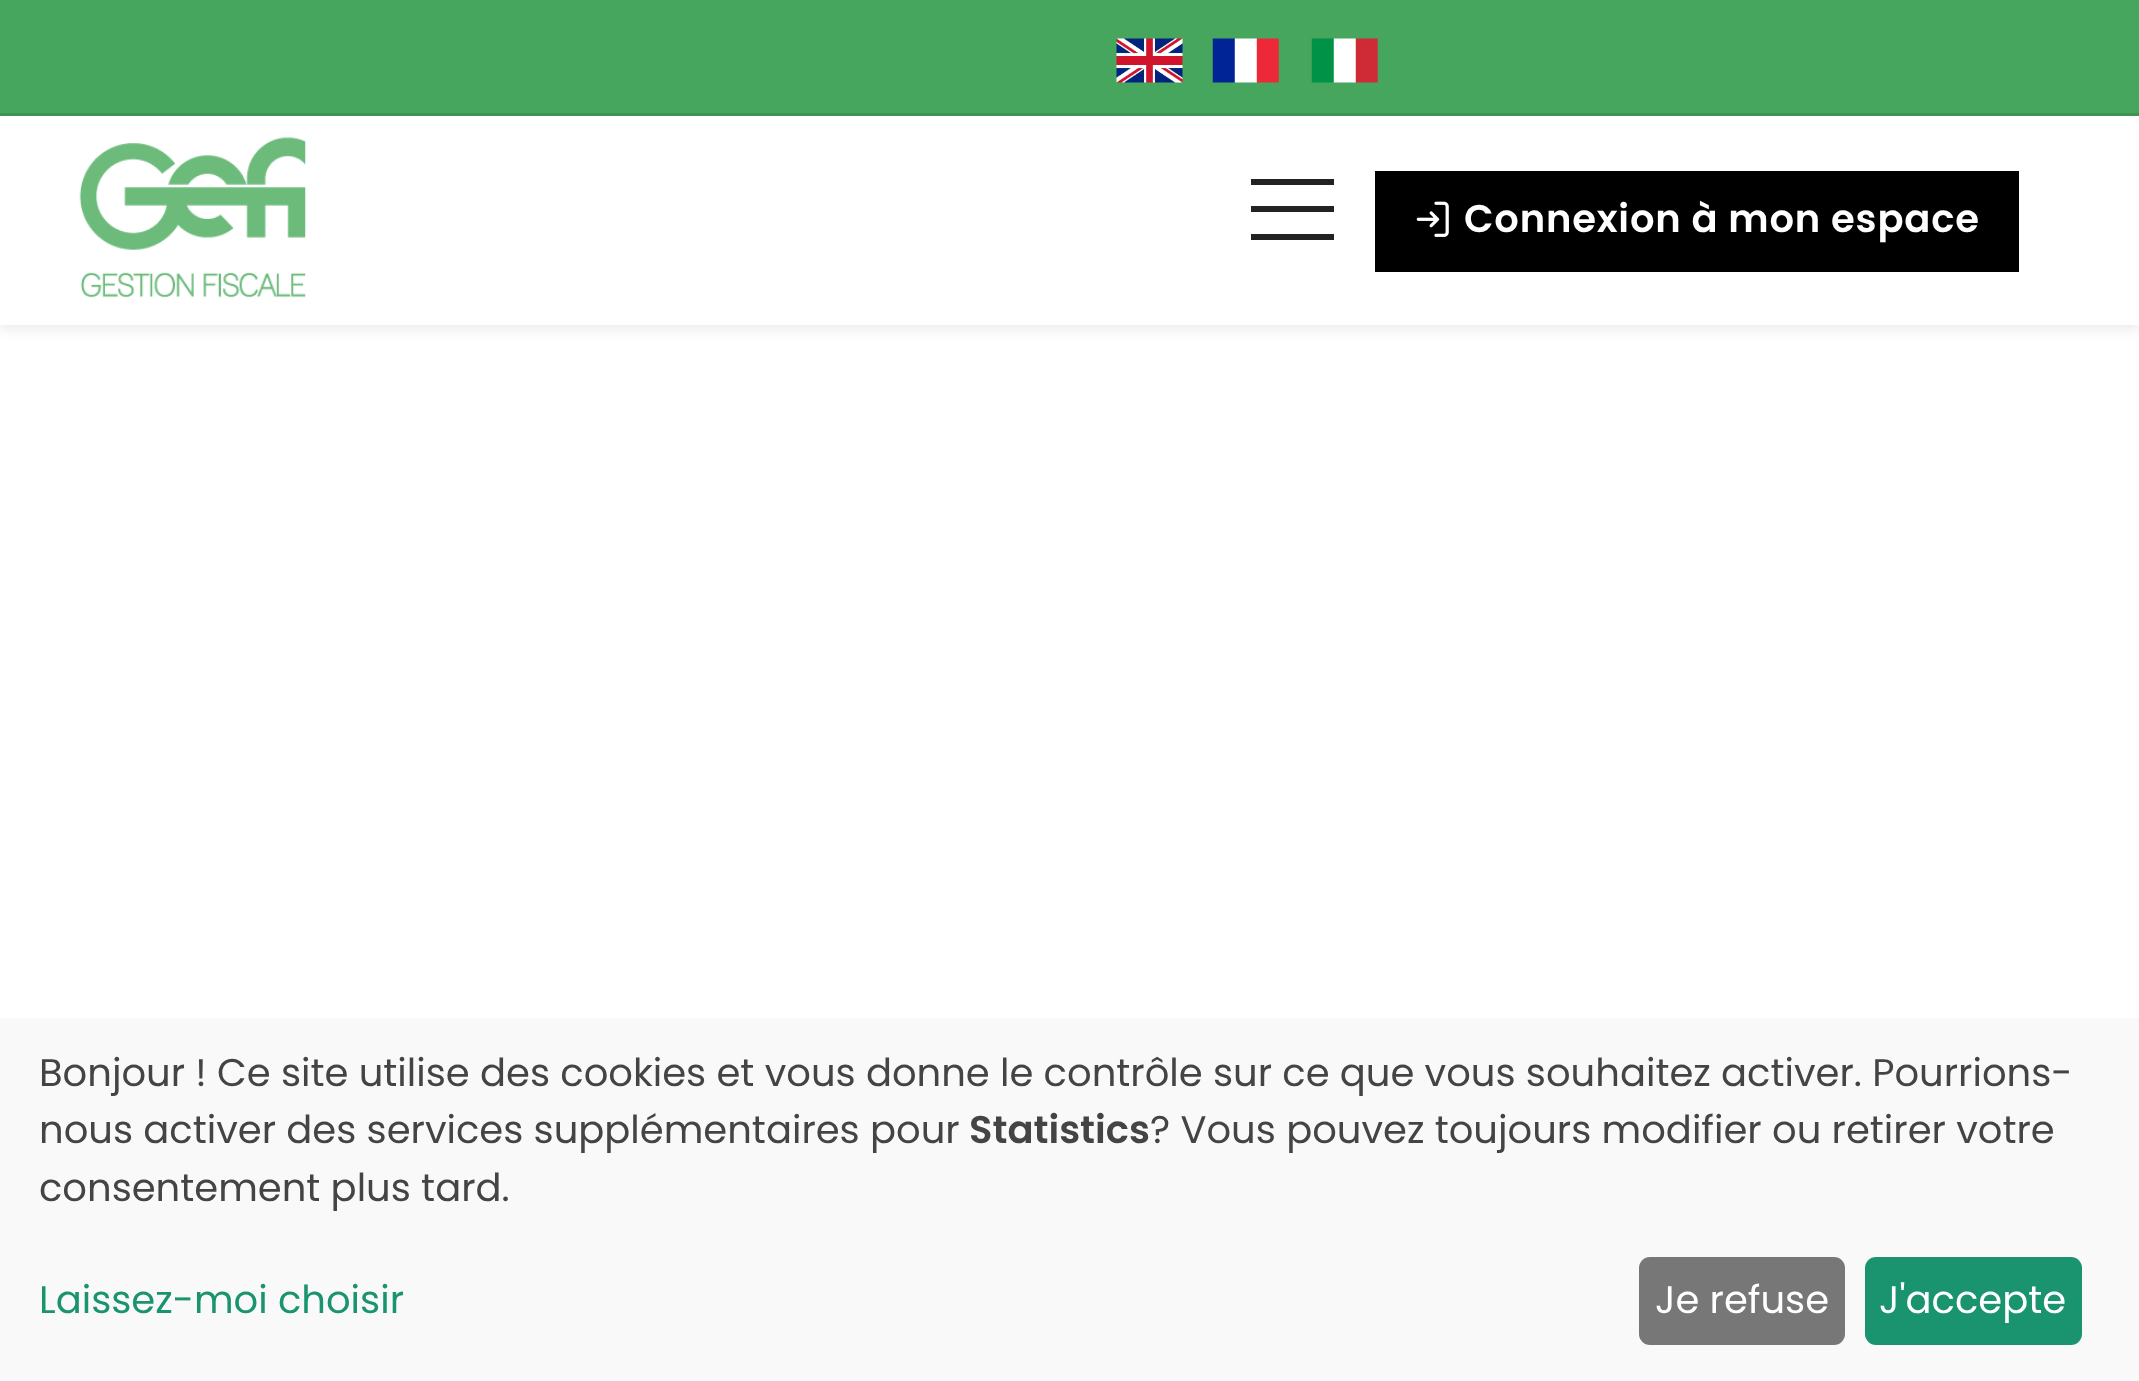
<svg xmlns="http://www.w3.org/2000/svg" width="2139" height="1381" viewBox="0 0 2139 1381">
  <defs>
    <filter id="blur1" x="-50%" y="-200%" width="200%" height="500%"><feGaussianBlur stdDeviation="5.5"/></filter>
  </defs>
  <rect width="100%" height="100%" fill="#ffffff"/>
  <rect x="0" y="0" width="2139" height="113" fill="#47a65d"/>
  <rect x="0" y="113" width="2139" height="3" fill="#3f9453"/>
  <image x="1116" y="38" width="67" height="45" href="img1.png"/>
  <image x="1212" y="38" width="67" height="45" href="img2.png"/>
  <image x="1311" y="38" width="67" height="45" href="img3.png"/>
  <rect x="0" y="121" width="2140" height="209" fill="#000000" fill-opacity="0.07" filter="url(#blur1)"/>
  <rect x="0" y="116" width="2139" height="209" fill="#ffffff"/>
  <image x="79" y="137" width="227" height="161" href="img4.png"/>
  <rect x="1251" y="179" width="83" height="6" fill="#222222"/>
  <rect x="1251" y="206" width="83" height="6" fill="#222222"/>
  <rect x="1251" y="234" width="83" height="6" fill="#222222"/>
  <rect x="1375" y="171" width="644" height="101" fill="#000000"/>
  <image x="1416" y="201" width="33" height="36" href="img5.png"/>
  <text x="1464" y="232" font-family="Poppins" font-size="38.5" font-weight="600" letter-spacing="0.8" fill="#ffffff">Connexion à mon espace</text>
  <rect x="0" y="1018" width="2139" height="363" fill="#f9f9f9"/>
  <text x="39" y="1086" font-family="Poppins" font-size="38.5" fill="#444444">Bonjour ! Ce site utilise des cookies et vous donne le contrôle sur ce que vous souhaitez activer. Pourrions-</text>
  <text x="39" y="1143" font-family="Poppins" font-size="38.5" fill="#444444">nous activer des services supplémentaires pour</text>
  <text x="969" y="1143" font-family="Poppins" font-size="38.5" font-weight="600" fill="#444444">Statistics</text>
  <text x="1150" y="1143" font-family="Poppins" font-size="38.5" fill="#444444">? Vous pouvez toujours modifier ou retirer votre</text>
  <text x="39" y="1201" font-family="Poppins" font-size="38.5" fill="#444444">consentement plus tard.</text>
  <text x="39" y="1313" font-family="Poppins" font-size="38.5" fill="#1a936f">Laissez-moi choisir</text>
  <rect x="1639" y="1257" width="206" height="88" rx="11" fill="#777777"/>
  <text x="1655" y="1313" font-family="Poppins" font-size="38.5" fill="#ffffff">Je refuse</text>
  <rect x="1865" y="1257" width="217" height="88" rx="11" fill="#1a936f"/>
  <text x="1879" y="1313" font-family="Poppins" font-size="38.5" fill="#ffffff">J'accepte</text>
</svg>
